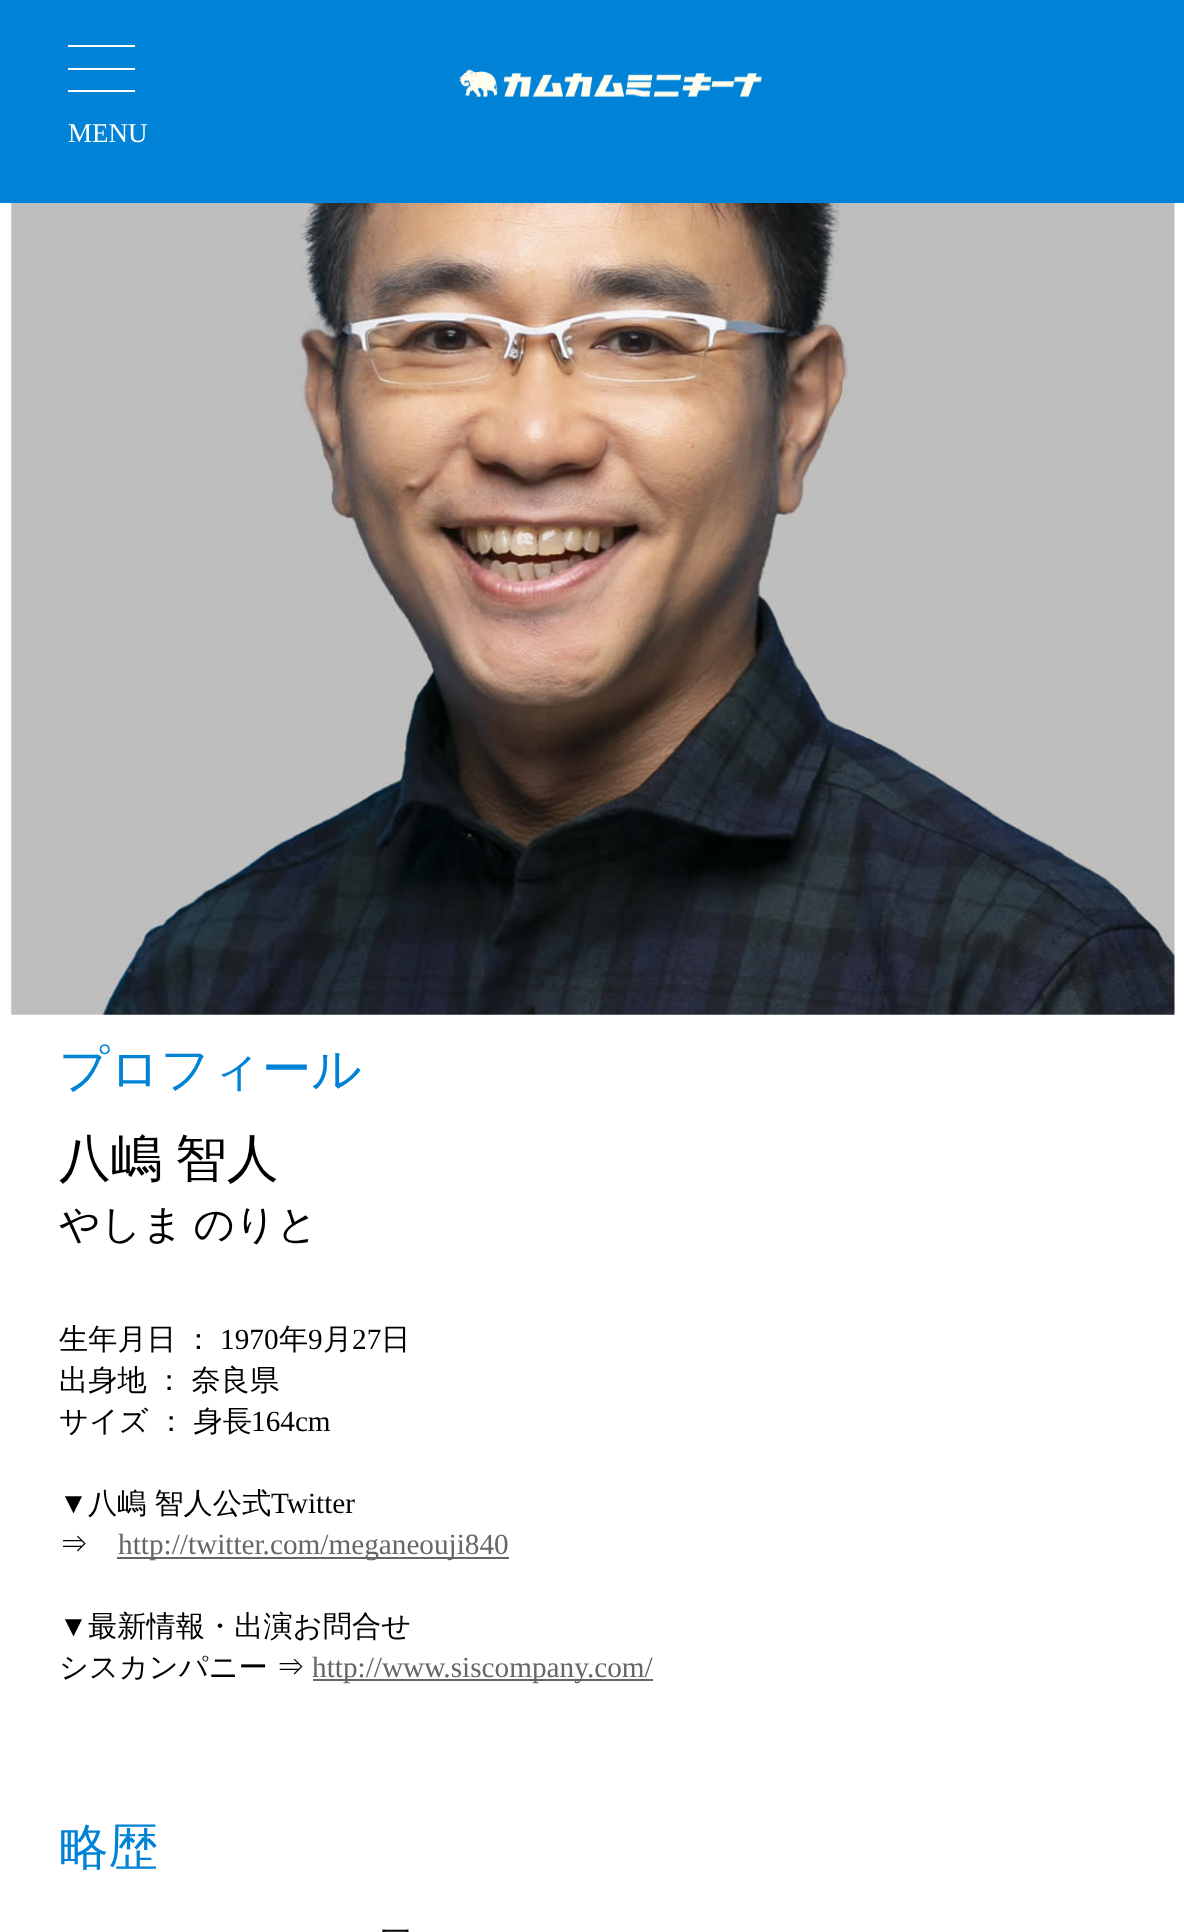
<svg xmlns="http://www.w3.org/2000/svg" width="1184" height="1932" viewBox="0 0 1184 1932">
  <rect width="100%" height="100%" fill="#ffffff"/>
  <rect x="0" y="0" width="1184" height="203" fill="#0082d6"/>
  <image x="459" y="69" width="303" height="28" href="img1.png"/>
  <rect x="68" y="45" width="67" height="2" fill="#ffffff"/>
  <rect x="68" y="68" width="67" height="2" fill="#ffffff"/>
  <rect x="68" y="90" width="67" height="2" fill="#ffffff"/>
  <text x="68" y="142" font-family="Liberation Serif" font-size="27" fill="#ffffff">MENU</text>
  <image x="11" y="203" width="1164" height="812" href="img2.png"/>
  <text x="59" y="1086" font-family="WenQuanYi Zen Hei" font-size="49.5" font-weight="500" fill="#0082d6">プロフィール</text>
  <text x="59" y="1176" word-spacing="-3" font-family="WenQuanYi Zen Hei" font-size="51.75" font-weight="500" fill="#000000">八嶋 智人</text>
  <text x="59" y="1238" word-spacing="-2" font-family="WenQuanYi Zen Hei" font-size="40.5" font-weight="500" fill="#000000">やしま のりと</text>
  <text x="59" y="1349" word-spacing="-1" font-family="WenQuanYi Zen Hei" font-size="29.25" font-weight="500" fill="#000000">生年月日 ：</text>
  <text x="220" y="1349" font-family="Liberation Serif" font-size="29.25" fill="#000000">1970</text>
  <text x="279" y="1349" font-family="WenQuanYi Zen Hei" font-size="29.25" font-weight="500" fill="#000000">年</text>
  <text x="308" y="1349" font-family="Liberation Serif" font-size="29.25" fill="#000000">9</text>
  <text x="323" y="1349" font-family="WenQuanYi Zen Hei" font-size="29.25" font-weight="500" fill="#000000">月</text>
  <text x="352" y="1349" font-family="Liberation Serif" font-size="29.25" fill="#000000">27</text>
  <text x="381" y="1349" font-family="WenQuanYi Zen Hei" font-size="29.25" font-weight="500" fill="#000000">日</text>
  <text x="59" y="1390" word-spacing="-1" font-family="WenQuanYi Zen Hei" font-size="29.25" font-weight="500" fill="#000000">出身地 ： 奈良県</text>
  <text x="59" y="1431" word-spacing="-1" font-family="WenQuanYi Zen Hei" font-size="29.25" font-weight="500" fill="#000000">サイズ ： 身長</text>
  <text x="251" y="1431" font-family="Liberation Serif" font-size="29.25" fill="#000000">164cm</text>
  <text x="59" y="1513" font-family="Liberation Serif" font-size="29.25" fill="#000000">▼</text>
  <text x="88" y="1513" word-spacing="-1" font-family="WenQuanYi Zen Hei" font-size="29.25" font-weight="500" fill="#000000">八嶋 智人公式</text>
  <text x="271" y="1513" font-family="Liberation Serif" font-size="29.25" fill="#000000">Twitter</text>
  <text x="59" y="1554" font-family="WenQuanYi Zen Hei" font-size="29.25" font-weight="500" fill="#000000">⇒</text>
  <rect x="117" y="1557" width="392" height="2" fill="#666666"/>
  <text x="118" y="1554" font-family="Liberation Serif" font-size="29.25" fill="#666666">http://twitter.com/meganeouji840</text>
  <text x="59" y="1636" font-family="Liberation Serif" font-size="29.25" fill="#000000">▼</text>
  <text x="88" y="1636" font-family="WenQuanYi Zen Hei" font-size="29.25" font-weight="500" fill="#000000">最新情報・出演お問合せ</text>
  <text x="59" y="1677" word-spacing="-1" font-family="WenQuanYi Zen Hei" font-size="29.25" font-weight="500" fill="#000000">シスカンパニー ⇒</text>
  <rect x="313" y="1679" width="340" height="2" fill="#666666"/>
  <text x="312" y="1677" font-family="Liberation Serif" font-size="29.25" fill="#666666">http://www.siscompany.com/</text>
  <text x="59" y="1864" font-family="WenQuanYi Zen Hei" font-size="49.5" font-weight="500" fill="#0082d6">略歴</text>
  <text x="381" y="1942" font-family="WenQuanYi Zen Hei" font-size="29.25" font-weight="500" fill="#000000">一</text>
</svg>
